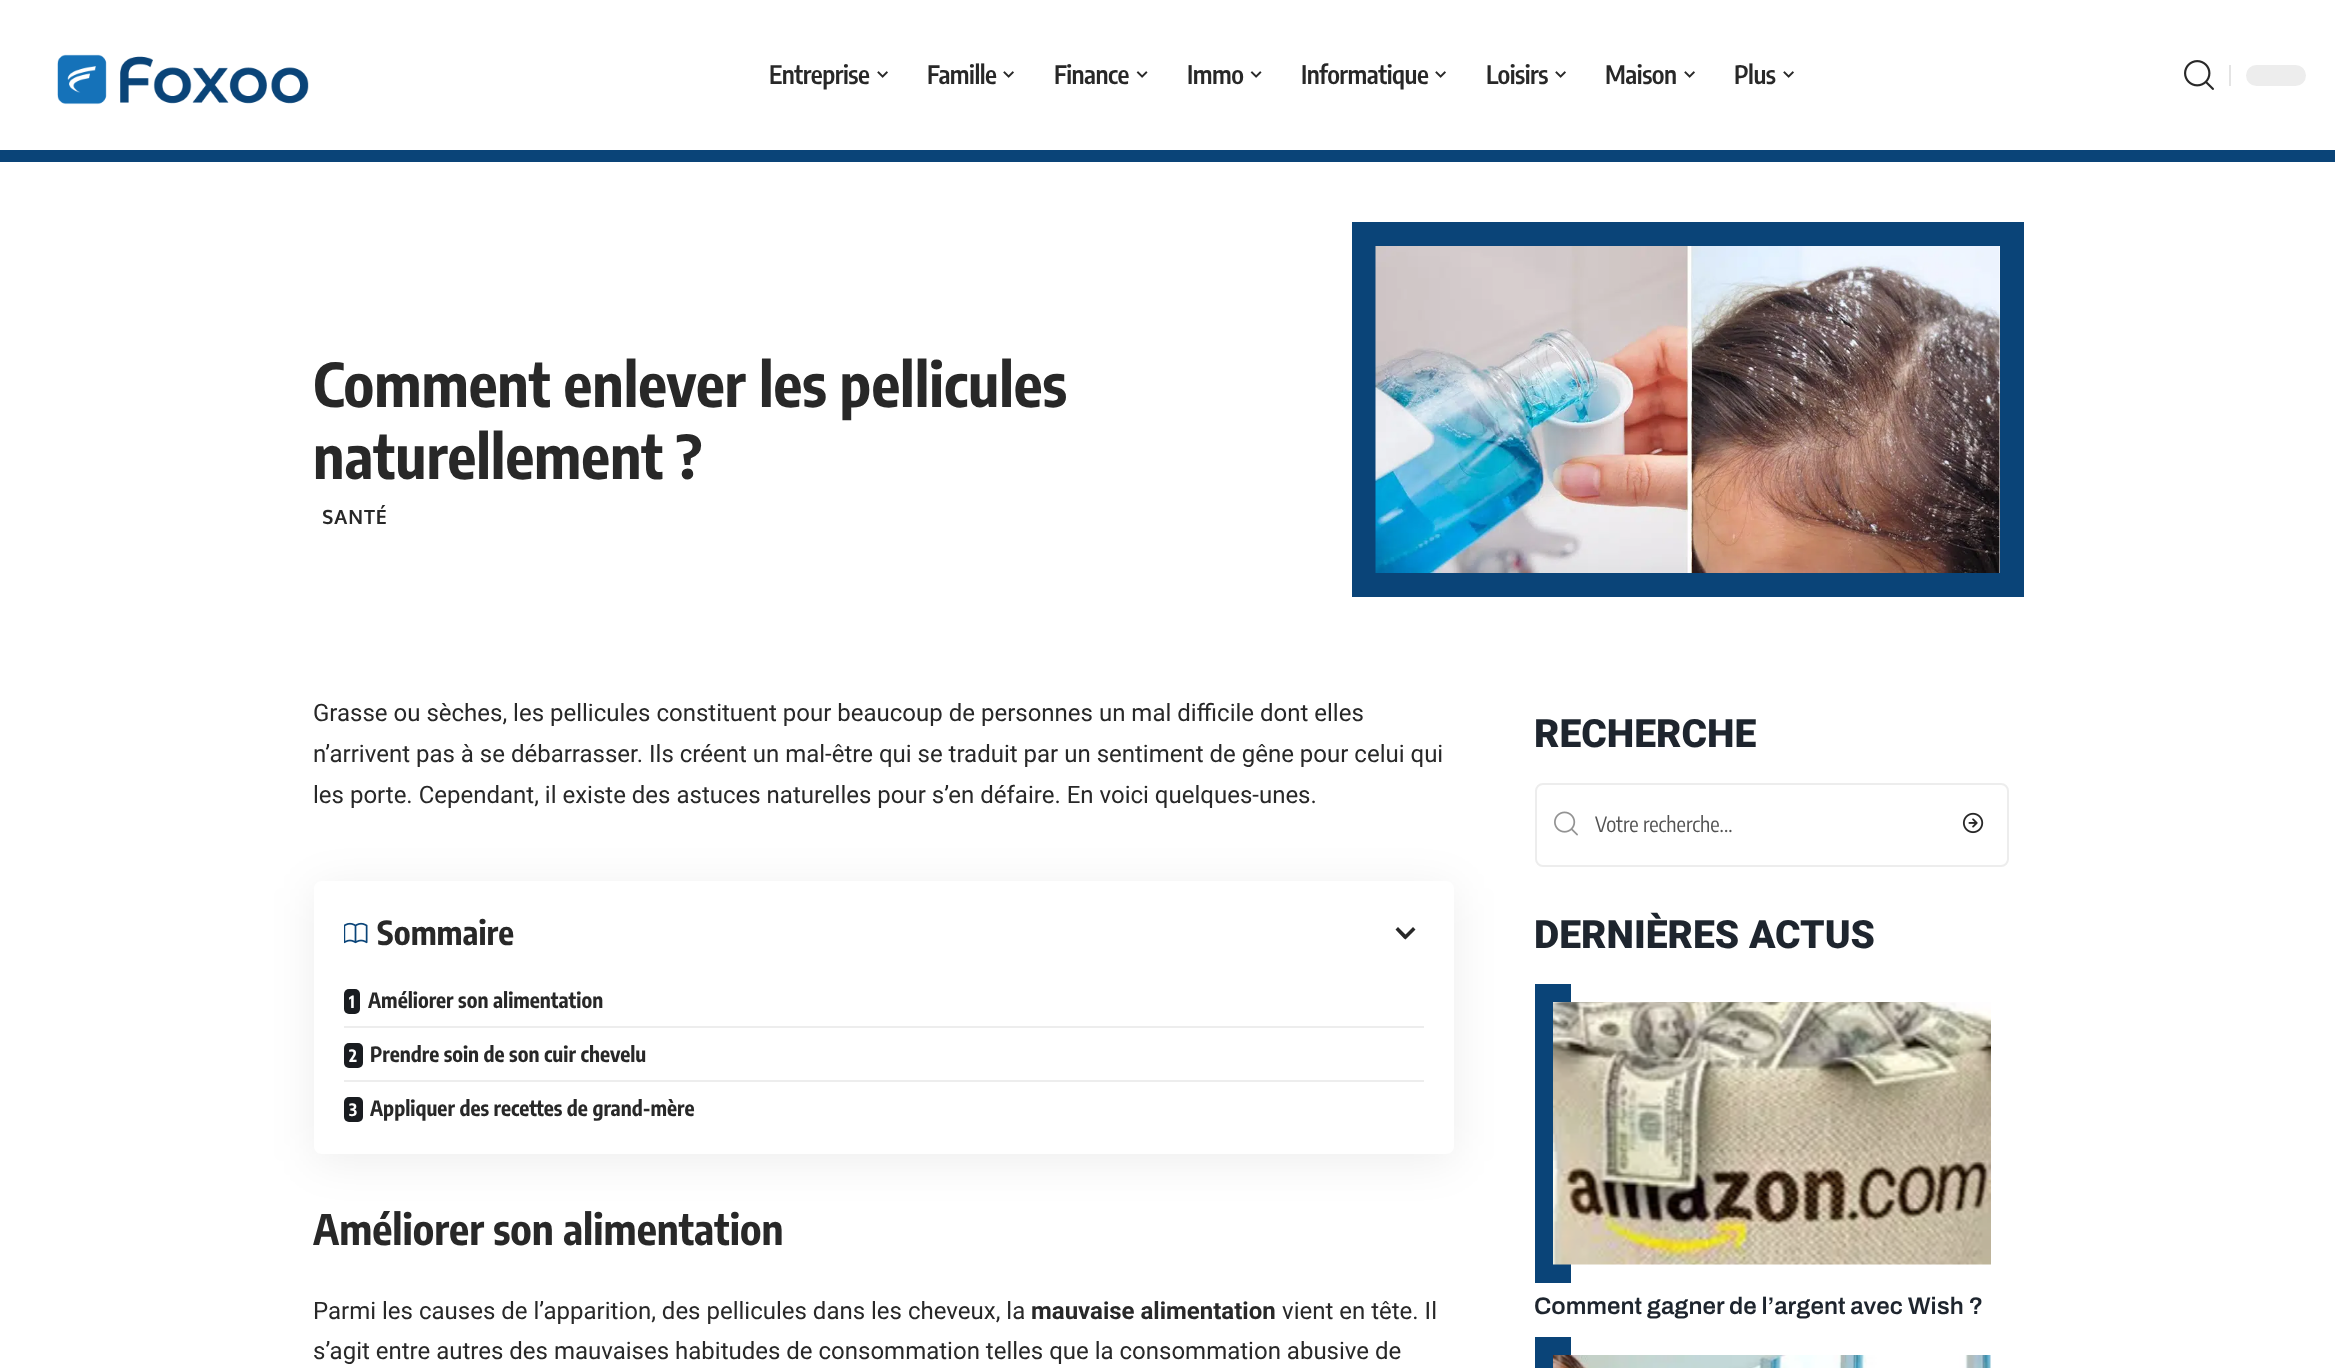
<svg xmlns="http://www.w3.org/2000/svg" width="2335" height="1368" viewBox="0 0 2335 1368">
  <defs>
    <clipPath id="clip1"><path d="M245 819H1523V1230H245ZM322 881H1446C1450.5 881 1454 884.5 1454 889V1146C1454 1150.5 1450.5 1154 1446 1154H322C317.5 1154 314 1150.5 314 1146V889C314 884.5 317.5 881 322 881Z" clip-rule="evenodd"/></clipPath>
    <filter id="blur1" x="-50%" y="-200%" width="200%" height="500%"><feGaussianBlur stdDeviation="22.5"/></filter>
  </defs>
  <rect width="100%" height="100%" fill="#ffffff"/>
  <rect x="0" y="150" width="2335" height="12" fill="#0a4478"/>
  <image x="57" y="54" width="252" height="51" href="img1.png"/>
  <text x="769" y="84" font-family="Encode Sans Condensed" font-size="25.5" font-weight="600" letter-spacing="-0.5" fill="#282828">Entreprise</text>
  <image x="877" y="71" width="11" height="7" href="img2.png"/>
  <text x="927" y="84" font-family="Encode Sans Condensed" font-size="25.5" font-weight="600" letter-spacing="-0.5" fill="#282828">Famille</text>
  <image x="1003" y="71" width="11" height="7" href="img2.png"/>
  <text x="1054" y="84" font-family="Encode Sans Condensed" font-size="25.5" font-weight="600" letter-spacing="-0.5" fill="#282828">Finance</text>
  <image x="1136" y="71" width="12" height="7" href="img3.png"/>
  <text x="1187" y="84" font-family="Encode Sans Condensed" font-size="25.5" font-weight="600" letter-spacing="-0.5" fill="#282828">Immo</text>
  <image x="1250" y="71" width="12" height="7" href="img3.png"/>
  <text x="1301" y="84" font-family="Encode Sans Condensed" font-size="25.5" font-weight="600" letter-spacing="-0.5" fill="#282828">Informatique</text>
  <image x="1435" y="71" width="11" height="7" href="img2.png"/>
  <text x="1486" y="84" font-family="Encode Sans Condensed" font-size="25.5" font-weight="600" letter-spacing="-0.5" fill="#282828">Loisirs</text>
  <image x="1555" y="71" width="11" height="7" href="img2.png"/>
  <text x="1605" y="84" font-family="Encode Sans Condensed" font-size="25.5" font-weight="600" letter-spacing="-0.5" fill="#282828">Maison</text>
  <image x="1684" y="71" width="11" height="7" href="img2.png"/>
  <text x="1734" y="84" font-family="Encode Sans Condensed" font-size="25.5" font-weight="600" letter-spacing="-0.5" fill="#282828">Plus</text>
  <image x="1783" y="71" width="11" height="7" href="img2.png"/>
  <image x="2184" y="60" width="30" height="30" href="img4.png"/>
  <rect x="2229" y="65" width="2" height="21" fill="#e4e4e4"/>
  <rect x="2246" y="65" width="60" height="21" rx="10.5" fill="#ededed"/>
  <text x="313" y="407" font-family="Encode Sans Condensed" font-size="60" font-weight="bold" fill="#282828">Comment enlever les pellicules</text>
  <text x="313" y="479" font-family="Encode Sans Condensed" font-size="60" font-weight="bold" fill="#282828">naturellement ?</text>
  <text x="322" y="524" font-family="Oxygen" font-size="19.5" font-weight="bold" letter-spacing="1" fill="#282828">SANTÉ</text>
  <rect x="1364" y="234" width="648" height="351" fill="none" stroke="#0a4478" stroke-width="24"/>
  <image x="1375" y="246" width="625" height="327" href="img5.png"/>
  <text x="313" y="721" font-family="Roboto" font-size="24" fill="#282828">Grasse ou sèches, les pellicules constituent pour beaucoup de personnes un mal difficile dont elles</text>
  <text x="313" y="762" font-family="Roboto" font-size="24" fill="#282828">n’arrivent pas à se débarrasser. Ils créent un mal-être qui se traduit par un sentiment de gêne pour celui qui</text>
  <text x="313" y="803" font-family="Roboto" font-size="24" fill="#282828">les porte. Cependant, il existe des astuces naturelles pour s’en défaire. En voici quelques-unes.</text>
  <g clip-path="url(#clip1)">
    <rect x="314" y="888" width="1140" height="273" rx="8" fill="#000000" fill-opacity="0.07" filter="url(#blur1)"/>
  </g>
  <image x="344" y="922" width="24" height="22" href="img6.png"/>
  <text x="377" y="945" font-family="Encode Sans Condensed" font-size="33" font-weight="bold" fill="#282828">Sommaire</text>
  <path d="M1404 938.5L1405.5 939.5L1415.5 929.5L1413 927L1405.5 934.5L1398 927L1395.5 929.5Z" fill="#282828"/>
  <rect x="344" y="989" width="16" height="25" rx="5" fill="#191c20"/>
  <text x="349" y="1008" font-family="Encode Sans Condensed" font-size="17" font-weight="bold" fill="#ffffff">1</text>
  <text x="368" y="1008" font-family="Encode Sans Condensed" font-size="21" font-weight="bold" fill="#282828">Améliorer son alimentation</text>
  <rect x="344" y="1026" width="1080" height="2" fill="#ededed"/>
  <rect x="344" y="1043" width="19" height="25" rx="5" fill="#191c20"/>
  <text x="349" y="1062" font-family="Encode Sans Condensed" font-size="17" font-weight="bold" fill="#ffffff">2</text>
  <text x="370" y="1062" font-family="Encode Sans Condensed" font-size="21" font-weight="bold" fill="#282828">Prendre soin de son cuir chevelu</text>
  <rect x="344" y="1080" width="1080" height="2" fill="#ededed"/>
  <rect x="344" y="1097" width="19" height="25" rx="5" fill="#191c20"/>
  <text x="349" y="1116" font-family="Encode Sans Condensed" font-size="17" font-weight="bold" fill="#ffffff">3</text>
  <text x="370" y="1116" font-family="Encode Sans Condensed" font-size="21" font-weight="bold" fill="#282828">Appliquer des recettes de grand-mère</text>
  <text x="313" y="1245" font-family="Encode Sans Condensed" font-size="42" font-weight="bold" fill="#282828">Améliorer son alimentation</text>
  <text x="313" y="1319" font-family="Roboto" font-size="24" fill="#282828">Parmi les causes de l’apparition, des pellicules dans les cheveux, la</text>
  <text x="1031" y="1319" font-family="Roboto" font-size="24" font-weight="bold" fill="#282828">mauvaise alimentation</text>
  <text x="1282" y="1319" font-family="Roboto" font-size="24" fill="#282828">vient en tête. Il</text>
  <text x="313" y="1359" font-family="Roboto" font-size="24" fill="#282828">s’agit entre autres des mauvaises habitudes de consommation telles que la consommation abusive de</text>
  <text x="1534" y="747" font-family="Roboto" font-size="39" font-weight="900" fill="#1e252e">RECHERCHE</text>
  <rect x="1536" y="784" width="472" height="82" rx="7" fill="none" stroke="#ededed" stroke-width="2"/>
  <image x="1554" y="811" width="24" height="25" href="img7.png"/>
  <text x="1595" y="832" font-family="Encode Sans Condensed" font-size="21" fill="#535353">Votre recherche...</text>
  <image x="1962" y="812" width="22" height="22" href="img8.png"/>
  <text x="1534" y="948" font-family="Roboto" font-size="39" font-weight="900" fill="#1e252e">DERNIÈRES ACTUS</text>
  <rect x="1535" y="984" width="36" height="299" fill="#0a4478"/>
  <image x="1553" y="1002" width="438" height="263" href="img9.png"/>
  <text x="1534" y="1314" font-family="Archivo" font-size="24" font-weight="600" fill="#1e252e">Comment gagner de l’argent avec Wish ?</text>
  <rect x="1535" y="1337" width="36" height="31" fill="#0a4478"/>
  <image x="1553" y="1355" width="438" height="13" href="img10.png"/>
</svg>
